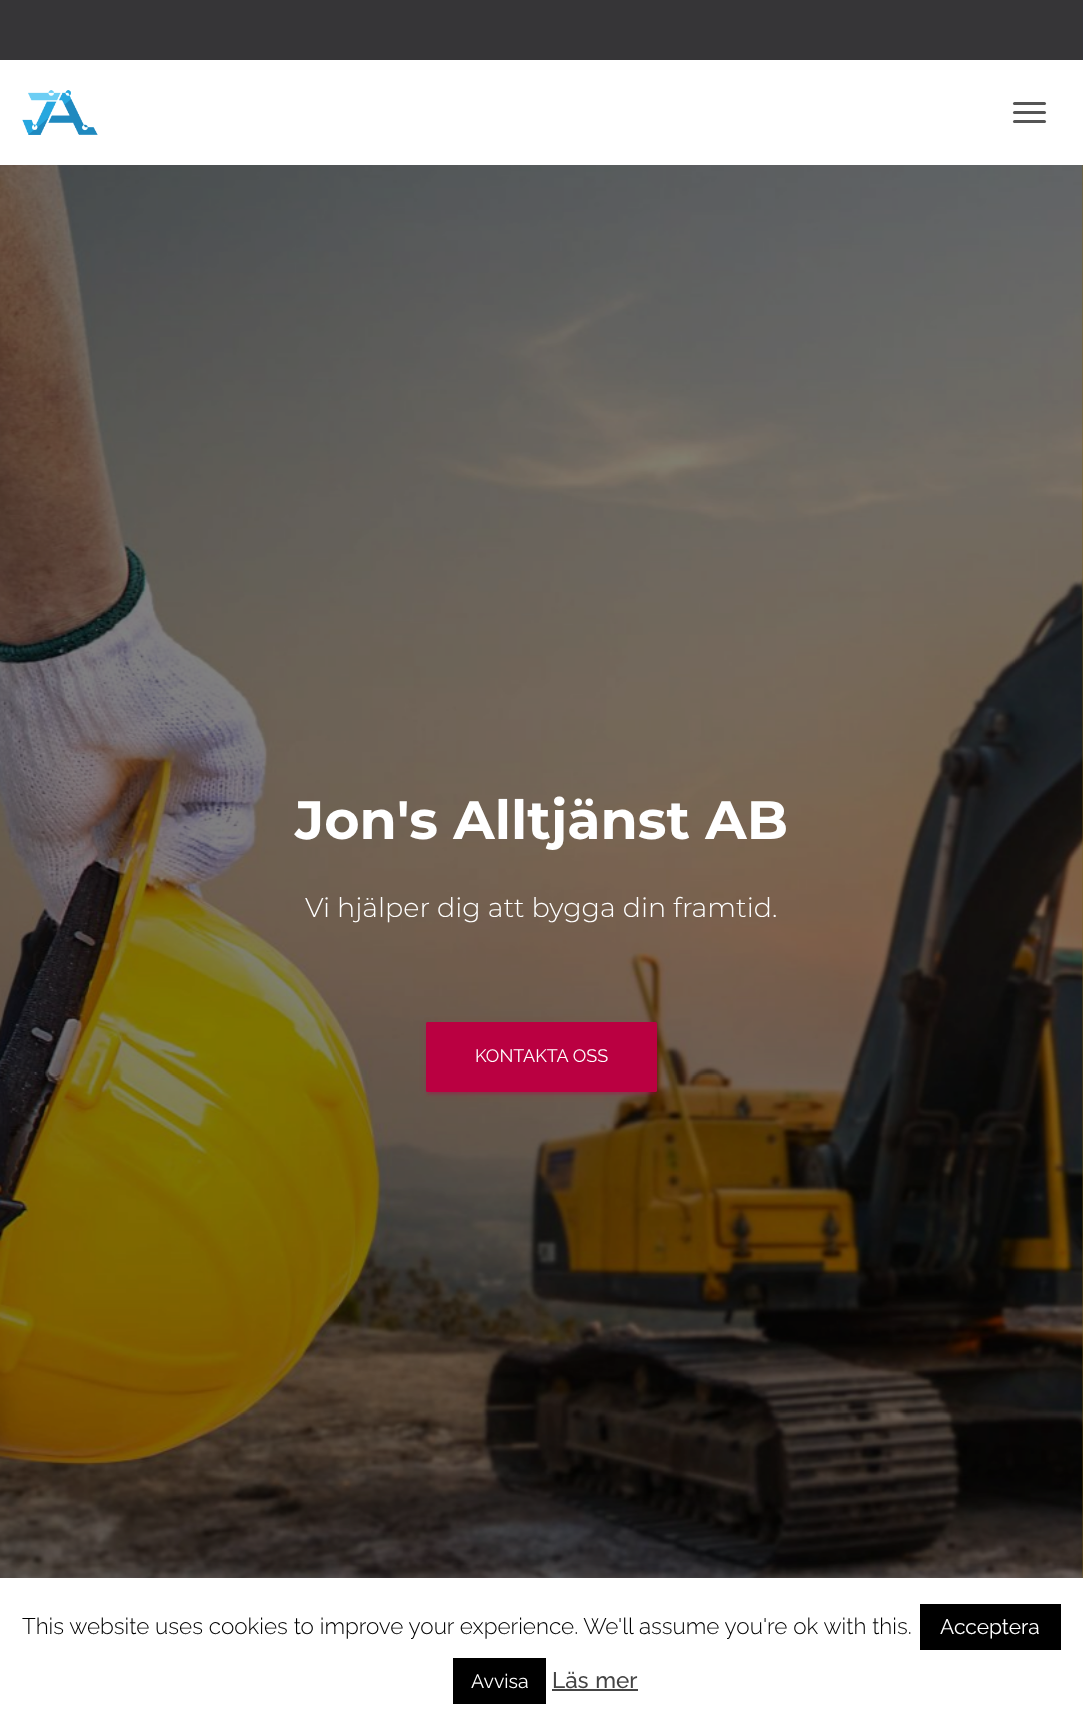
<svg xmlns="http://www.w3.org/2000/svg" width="1083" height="1722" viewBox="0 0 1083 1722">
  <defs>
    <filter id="blur1" x="-50%" y="-200%" width="200%" height="500%"><feGaussianBlur stdDeviation="4"/></filter>
    <filter id="blur2" x="-50%" y="-200%" width="200%" height="500%"><feGaussianBlur stdDeviation="1"/></filter>
    <filter id="blur3" x="-50%" y="-200%" width="200%" height="500%"><feGaussianBlur stdDeviation="1.5"/></filter>
    <filter id="blur4" x="-50%" y="-200%" width="200%" height="500%"><feGaussianBlur stdDeviation="7.5"/></filter>
  </defs>
  <rect width="100%" height="100%" fill="#806200"/>
  <rect x="0" y="0" width="1083" height="60" fill="#363537"/>
  <rect x="0" y="60" width="1083" height="105" fill="#ffffff"/>
  <image x="22" y="90" width="76" height="45" href="img1.png"/>
  <rect x="1013" y="102" width="33" height="3" rx="1.5" fill="#555555"/>
  <rect x="1013" y="111" width="33" height="3" rx="1.5" fill="#555555"/>
  <rect x="1013" y="120" width="33" height="3" rx="1.5" fill="#555555"/>
  <image x="0" y="165" width="1083" height="1413" href="img2.png"/>
  <text x="295" y="839" font-family="Montserrat" font-size="54" font-weight="bold" fill="#ffffff">Jon's Alltjänst AB</text>
  <text x="305" y="917" font-family="Montserrat" font-size="27" font-weight="300" fill="#ffffff">Vi hjälper dig att bygga din framtid.</text>
  <rect x="426" y="1023" width="231" height="71" rx="1.5" fill="#ba0041" fill-opacity="0.12" filter="url(#blur1)"/>
  <rect x="429" y="1029" width="225" height="65" fill="#ba0041" fill-opacity="0.2" filter="url(#blur2)"/>
  <rect x="426" y="1025" width="231" height="70" rx="1.5" fill="#ba0041" fill-opacity="0.14" filter="url(#blur3)"/>
  <rect x="426" y="1022" width="231" height="70" rx="1.5" fill="#ba0041"/>
  <text x="475" y="1062" font-family="Raleway" font-size="18" fill="#ffffff">KONTAKTA OSS</text>
  <rect x="0" y="1577" width="1083" height="144" fill="#acabab" fill-opacity="0.3" filter="url(#blur4)"/>
  <rect x="0" y="1578" width="1083" height="144" fill="#ffffff"/>
  <text x="22" y="1634" font-family="Raleway" font-size="22.5" font-weight="300" fill="#000000">This website uses cookies to improve your experience. We'll assume you're ok with this.</text>
  <rect x="920" y="1604" width="141" height="46" fill="#000000"/>
  <text x="940" y="1634" font-family="Raleway" font-size="21" fill="#ffffff">Acceptera</text>
  <rect x="453" y="1658" width="93" height="46" fill="#000000"/>
  <text x="471" y="1688" font-family="Raleway" font-size="19.5" fill="#ffffff">Avvisa</text>
  <text x="552" y="1688" word-spacing="1" font-family="Raleway" font-size="22.5" font-weight="500" fill="#444444">Läs mer</text>
  <rect x="552" y="1689" width="86" height="2" fill="#444444"/>
</svg>
